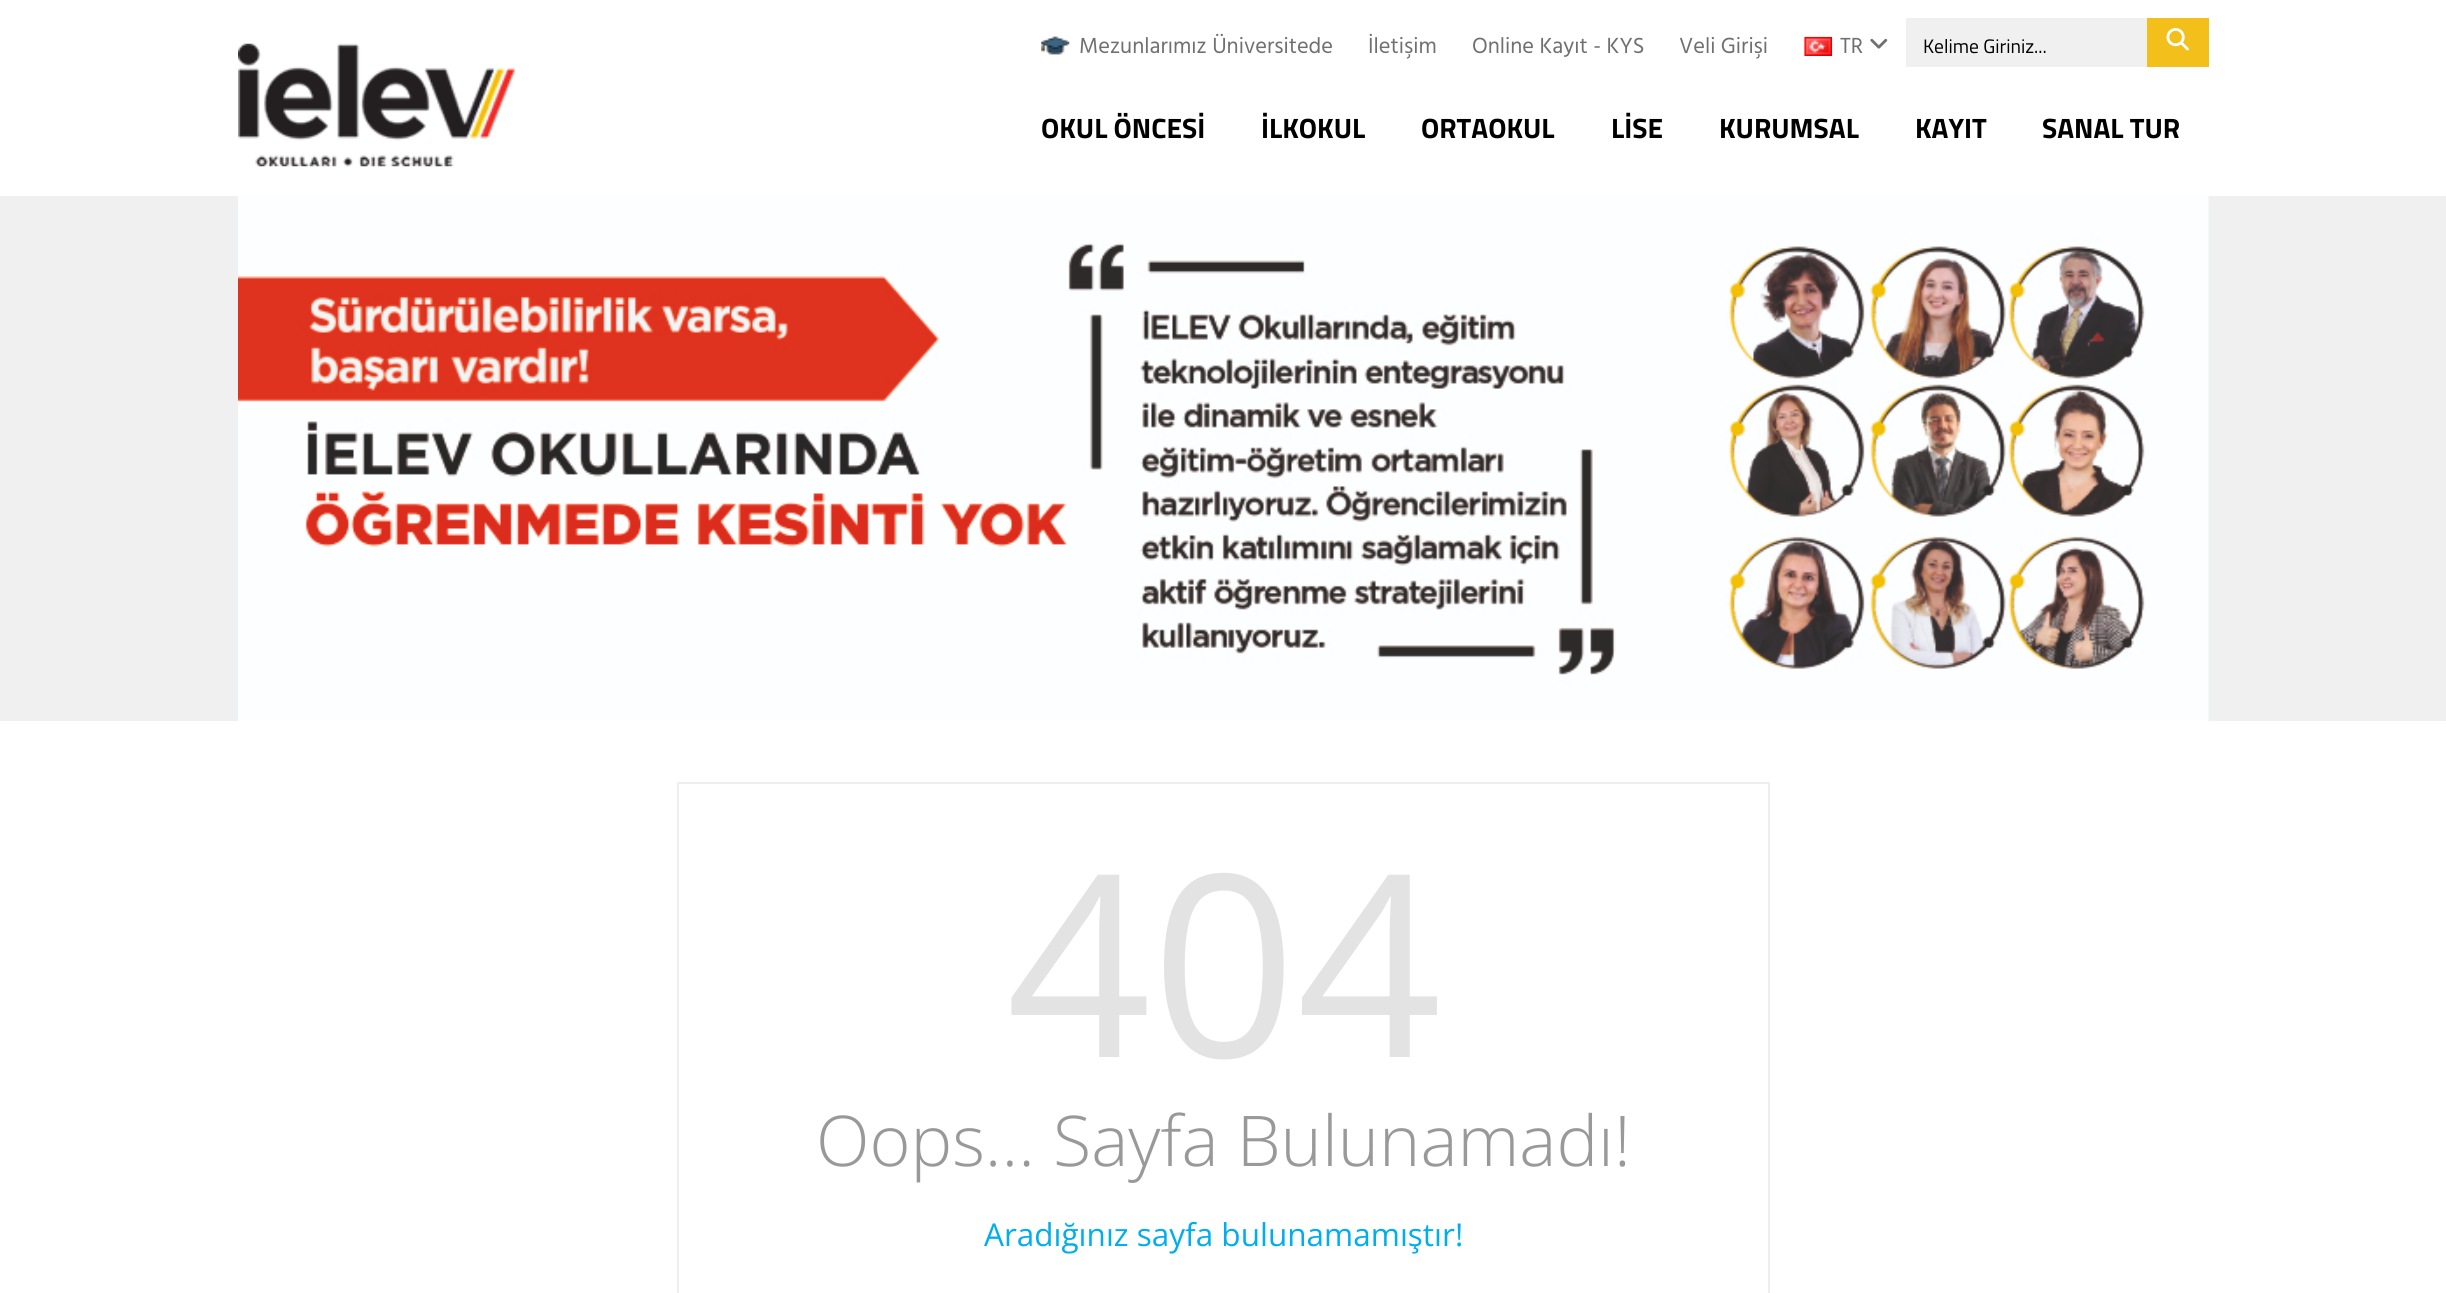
#include <cairo.h>
#include <math.h>
#include <stddef.h>


static void picture(cairo_t *cr, const char *path, double x, double y, double w, double h) {
    cairo_surface_t *image = cairo_image_surface_create_from_png(path);
    cairo_save(cr);
    cairo_set_source_surface(cr, image, x, y);
    cairo_rectangle(cr, x, y, w, h);
    cairo_fill(cr);
    cairo_restore(cr);
    cairo_surface_destroy(image);
}

int main(void) {
    cairo_surface_t *surface = cairo_image_surface_create(CAIRO_FORMAT_RGB24, 2446, 1293);
    cairo_t *cr = cairo_create(surface);
    cairo_font_options_t *options = cairo_font_options_create();
    cairo_font_options_set_hint_metrics(options, CAIRO_HINT_METRICS_OFF);
    cairo_font_options_set_hint_style(options, CAIRO_HINT_STYLE_NONE);
    cairo_set_font_options(cr, options);
    cairo_set_miter_limit(cr, 4);
    cairo_set_source_rgb(cr, 1, 1, 1);
    cairo_paint(cr);
    picture(cr, "img1.png", 238, 43, 277, 124);
    picture(cr, "img2.png", 1041, 36, 29, 19);
    cairo_select_font_face(cr, "Hind", CAIRO_FONT_SLANT_NORMAL, CAIRO_FONT_WEIGHT_NORMAL);
    cairo_set_font_size(cr, 22.4);
    cairo_set_source_rgb(cr, 0.439, 0.439, 0.439);
    cairo_move_to(cr, 1079, 53);
    cairo_show_text(cr, "Mezunlarımız Üniversitede");
    cairo_move_to(cr, 1368, 53);
    cairo_show_text(cr, "İletişim");
    cairo_move_to(cr, 1472, 53);
    cairo_show_text(cr, "Online Kayıt - KYS");
    cairo_move_to(cr, 1679, 53);
    cairo_show_text(cr, "Veli Girişi");
    picture(cr, "img3.png", 1804, 36, 29, 20);
    cairo_move_to(cr, 1840, 53);
    cairo_show_text(cr, "TR");
    picture(cr, "img4.png", 1870, 38, 18, 11);
    cairo_set_source_rgb(cr, 0.941, 0.941, 0.941);
    cairo_rectangle(cr, 1906, 18, 241, 49);
    cairo_fill(cr);
    cairo_select_font_face(cr, "Titillium Web", CAIRO_FONT_SLANT_NORMAL, CAIRO_FONT_WEIGHT_NORMAL);
    cairo_set_font_size(cr, 19.5);
    cairo_set_source_rgb(cr, 0, 0, 0);
    cairo_move_to(cr, 1923, 53);
    cairo_show_text(cr, "Kelime Giriniz...");
    cairo_set_source_rgb(cr, 0.953, 0.749, 0.102);
    cairo_rectangle(cr, 2147, 18, 62, 49);
    cairo_fill(cr);
    picture(cr, "img5.png", 2166, 28, 23, 23);
    cairo_select_font_face(cr, "Titillium Web", CAIRO_FONT_SLANT_NORMAL, CAIRO_FONT_WEIGHT_BOLD);
    cairo_set_font_size(cr, 28);
    cairo_set_source_rgb(cr, 0, 0, 0);
    cairo_move_to(cr, 1041, 138);
    cairo_show_text(cr, "OKUL ÖNCESİ");
    cairo_move_to(cr, 1261, 138);
    cairo_show_text(cr, "İLKOKUL");
    cairo_move_to(cr, 1421, 138);
    cairo_show_text(cr, "ORTAOKUL");
    cairo_move_to(cr, 1611, 138);
    cairo_show_text(cr, "LİSE");
    cairo_move_to(cr, 1719, 138);
    cairo_show_text(cr, "KURUMSAL");
    cairo_move_to(cr, 1915, 138);
    cairo_show_text(cr, "KAYIT");
    cairo_move_to(cr, 2042, 138);
    cairo_show_text(cr, "SANAL TUR");
    cairo_set_source_rgb(cr, 0.941, 0.941, 0.941);
    cairo_rectangle(cr, 0, 196, 2446, 525);
    cairo_fill(cr);
    picture(cr, "img6.png", 238, 196, 1971, 525);
    cairo_set_source_rgb(cr, 0.933, 0.933, 0.933);
    cairo_rectangle(cr, 677, 782, 1092, 2);
    cairo_fill(cr);
    cairo_rectangle(cr, 1768, 782, 2, 511);
    cairo_fill(cr);
    cairo_rectangle(cr, 677, 782, 2, 511);
    cairo_fill(cr);
    cairo_select_font_face(cr, "Open Sans", CAIRO_FONT_SLANT_NORMAL, CAIRO_FONT_WEIGHT_NORMAL);
    cairo_set_font_size(cr, 254);
    cairo_set_source_rgb(cr, 0.89, 0.89, 0.89);
    cairo_move_to(cr, 1006, 1057);
    cairo_show_text(cr, "404");
    cairo_select_font_face(cr, "Open Sans Light", CAIRO_FONT_SLANT_NORMAL, CAIRO_FONT_WEIGHT_NORMAL);
    cairo_set_font_size(cr, 70);
    cairo_set_source_rgb(cr, 0.6, 0.6, 0.6);
    cairo_move_to(cr, 816, 1166);
    cairo_show_text(cr, "Oops... Sayfa Bulunamadı!");
    cairo_select_font_face(cr, "Open Sans", CAIRO_FONT_SLANT_NORMAL, CAIRO_FONT_WEIGHT_NORMAL);
    cairo_set_font_size(cr, 31.5);
    cairo_set_source_rgb(cr, 0, 0.682, 0.937);
    cairo_move_to(cr, 984, 1246);
    cairo_show_text(cr, "Aradığınız sayfa bulunamamıştır!");
    cairo_surface_write_to_png(surface, "page.png");
    cairo_font_options_destroy(options);
    cairo_destroy(cr);
    cairo_surface_destroy(surface);
    return 0;
}
